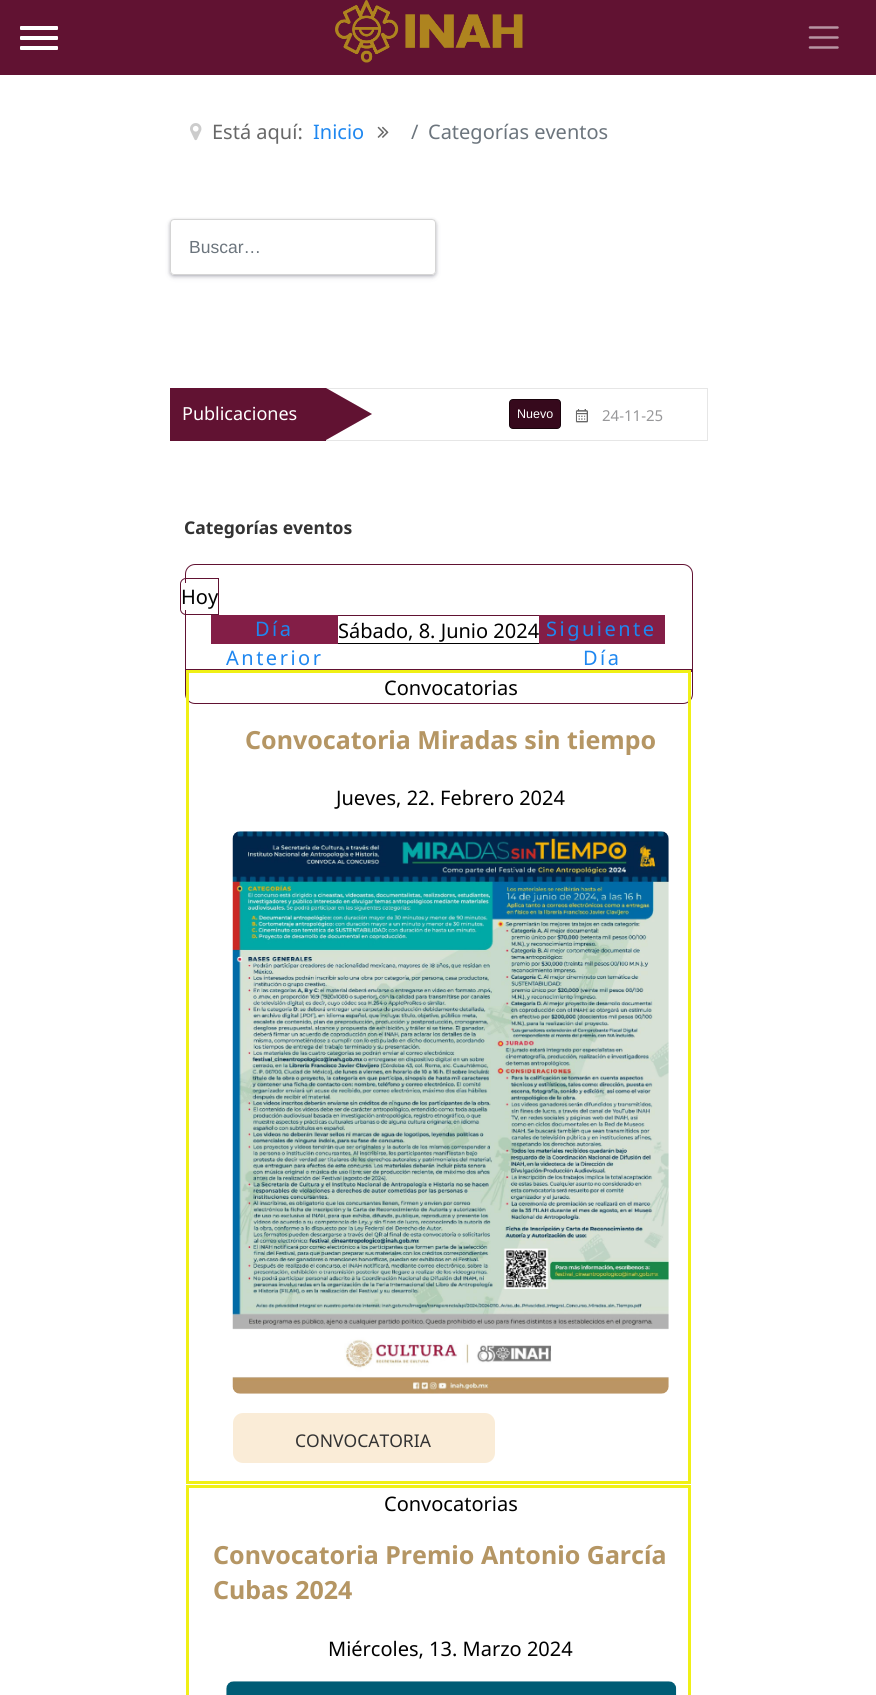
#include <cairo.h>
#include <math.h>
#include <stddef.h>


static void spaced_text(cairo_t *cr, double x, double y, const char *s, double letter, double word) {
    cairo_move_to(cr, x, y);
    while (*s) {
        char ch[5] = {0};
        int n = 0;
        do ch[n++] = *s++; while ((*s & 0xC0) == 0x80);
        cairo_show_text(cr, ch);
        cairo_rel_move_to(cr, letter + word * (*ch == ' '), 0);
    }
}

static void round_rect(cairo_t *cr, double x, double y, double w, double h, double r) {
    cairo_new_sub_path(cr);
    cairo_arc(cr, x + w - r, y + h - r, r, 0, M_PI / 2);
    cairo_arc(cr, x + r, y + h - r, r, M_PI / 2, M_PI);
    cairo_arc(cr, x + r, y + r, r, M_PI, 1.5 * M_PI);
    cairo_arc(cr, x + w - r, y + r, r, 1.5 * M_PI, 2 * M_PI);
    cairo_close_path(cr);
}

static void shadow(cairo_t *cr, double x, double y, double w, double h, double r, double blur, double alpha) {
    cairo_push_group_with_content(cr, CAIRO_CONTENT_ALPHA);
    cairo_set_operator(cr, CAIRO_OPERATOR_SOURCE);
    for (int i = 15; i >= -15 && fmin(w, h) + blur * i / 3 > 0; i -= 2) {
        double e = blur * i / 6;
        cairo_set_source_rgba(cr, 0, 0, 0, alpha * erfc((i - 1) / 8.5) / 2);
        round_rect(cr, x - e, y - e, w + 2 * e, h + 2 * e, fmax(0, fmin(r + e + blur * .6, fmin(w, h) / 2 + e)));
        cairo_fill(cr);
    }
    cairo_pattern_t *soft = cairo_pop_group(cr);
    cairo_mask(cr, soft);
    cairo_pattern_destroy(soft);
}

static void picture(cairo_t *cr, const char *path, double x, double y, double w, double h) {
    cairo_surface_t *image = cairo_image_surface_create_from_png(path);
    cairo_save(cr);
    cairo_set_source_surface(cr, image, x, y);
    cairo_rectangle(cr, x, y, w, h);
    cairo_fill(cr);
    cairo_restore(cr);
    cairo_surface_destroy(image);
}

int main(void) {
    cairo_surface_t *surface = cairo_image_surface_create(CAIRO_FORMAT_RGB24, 876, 1695);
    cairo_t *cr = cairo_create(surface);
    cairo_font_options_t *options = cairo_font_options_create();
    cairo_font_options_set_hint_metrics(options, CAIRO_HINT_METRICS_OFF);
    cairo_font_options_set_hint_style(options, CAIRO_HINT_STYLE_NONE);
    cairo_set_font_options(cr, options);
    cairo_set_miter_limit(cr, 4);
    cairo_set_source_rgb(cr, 1, 1, 1);
    cairo_paint(cr);
    cairo_set_source_rgb(cr, 0.38, 0.071, 0.196);
    cairo_rectangle(cr, 0, 0, 876, 75);
    cairo_fill(cr);
    picture(cr, "img1.png", 335, 0, 188, 63);
    cairo_new_path(cr);
    cairo_move_to(cr, 810, 27.5);
    cairo_line_to(cr, 837.5, 27.5);
    cairo_move_to(cr, 810, 37.5);
    cairo_line_to(cr, 837.5, 37.5);
    cairo_move_to(cr, 810, 47.5);
    cairo_line_to(cr, 837.5, 47.5);
    cairo_set_source_rgb(cr, 0.722, 0.58, 0.639);
    cairo_set_line_width(cr, 2.5);
    cairo_set_line_cap(cr, CAIRO_LINE_CAP_ROUND);
    cairo_stroke(cr);
    cairo_set_source_rgb(cr, 1, 1, 1);
    round_rect(cr, 20, 36, 38, 4, 1);
    cairo_fill(cr);
    round_rect(cr, 20, 26, 38, 4, 1);
    cairo_fill(cr);
    round_rect(cr, 20, 46, 38, 4, 1);
    cairo_fill(cr);
    picture(cr, "img2.png", 190, 123, 12, 18);
    cairo_select_font_face(cr, "Noto Sans", CAIRO_FONT_SLANT_NORMAL, CAIRO_FONT_WEIGHT_NORMAL);
    cairo_set_font_size(cr, 20);
    cairo_set_source_rgb(cr, 0.408, 0.408, 0.408);
    cairo_move_to(cr, 212, 139);
    cairo_show_text(cr, "Está aquí:");
    cairo_set_source_rgb(cr, 0.118, 0.529, 0.941);
    cairo_move_to(cr, 313, 139);
    cairo_show_text(cr, "Inicio");
    picture(cr, "img3.png", 377, 126, 12, 12);
    cairo_set_source_rgb(cr, 0.424, 0.459, 0.49);
    cairo_move_to(cr, 411, 139);
    cairo_show_text(cr, "/");
    cairo_move_to(cr, 428, 139);
    cairo_show_text(cr, "Categorías eventos");
    cairo_save(cr);
    cairo_set_fill_rule(cr, CAIRO_FILL_RULE_EVEN_ODD);
    cairo_new_path(cr);
    cairo_move_to(cr, 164, 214);
    cairo_line_to(cr, 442, 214);
    cairo_line_to(cr, 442, 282);
    cairo_line_to(cr, 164, 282);
    cairo_close_path(cr);
    cairo_move_to(cr, 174, 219);
    cairo_line_to(cr, 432, 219);
    cairo_curve_to(cr, 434, 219, 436, 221, 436, 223);
    cairo_line_to(cr, 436, 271);
    cairo_curve_to(cr, 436, 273, 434, 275, 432, 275);
    cairo_line_to(cr, 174, 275);
    cairo_curve_to(cr, 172, 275, 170, 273, 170, 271);
    cairo_line_to(cr, 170, 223);
    cairo_curve_to(cr, 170, 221, 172, 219, 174, 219);
    cairo_close_path(cr);
    cairo_clip(cr);
    cairo_set_source_rgb(cr, 0, 0, 0);
    shadow(cr, 171, 221, 264, 54, 2.5, 2, 0.3);
    cairo_restore(cr);
    cairo_save(cr);
    cairo_set_fill_rule(cr, CAIRO_FILL_RULE_EVEN_ODD);
    cairo_new_path(cr);
    cairo_move_to(cr, 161, 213);
    cairo_line_to(cr, 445, 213);
    cairo_line_to(cr, 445, 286);
    cairo_line_to(cr, 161, 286);
    cairo_close_path(cr);
    cairo_move_to(cr, 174, 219);
    cairo_line_to(cr, 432, 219);
    cairo_curve_to(cr, 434, 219, 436, 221, 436, 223);
    cairo_line_to(cr, 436, 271);
    cairo_curve_to(cr, 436, 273, 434, 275, 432, 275);
    cairo_line_to(cr, 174, 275);
    cairo_curve_to(cr, 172, 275, 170, 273, 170, 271);
    cairo_line_to(cr, 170, 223);
    cairo_curve_to(cr, 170, 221, 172, 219, 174, 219);
    cairo_close_path(cr);
    cairo_clip(cr);
    cairo_set_source_rgb(cr, 0.196, 0.196, 0.365);
    shadow(cr, 171, 223, 264, 53, 2.5, 3, 0.25);
    cairo_restore(cr);
    round_rect(cr, 170.5, 219.5, 265, 55, 3.5);
    cairo_set_source_rgb(cr, 0.835, 0.835, 0.835);
    cairo_set_line_width(cr, 1);
    cairo_set_line_cap(cr, CAIRO_LINE_CAP_BUTT);
    cairo_stroke(cr);
    cairo_select_font_face(cr, "Liberation Sans", CAIRO_FONT_SLANT_NORMAL, CAIRO_FONT_WEIGHT_NORMAL);
    cairo_set_font_size(cr, 17.5);
    cairo_set_source_rgb(cr, 0.424, 0.459, 0.49);
    cairo_move_to(cr, 189, 253);
    cairo_show_text(cr, "Buscar…");
    cairo_rectangle(cr, 170.5, 388.5, 537, 52);
    cairo_set_source_rgb(cr, 0.902, 0.902, 0.902);
    cairo_stroke(cr);
    cairo_set_source_rgb(cr, 0.38, 0.071, 0.196);
    cairo_rectangle(cr, 170, 388, 156, 53);
    cairo_fill(cr);
    cairo_select_font_face(cr, "Noto Sans", CAIRO_FONT_SLANT_NORMAL, CAIRO_FONT_WEIGHT_NORMAL);
    cairo_set_font_size(cr, 18);
    cairo_set_source_rgb(cr, 1, 1, 1);
    cairo_move_to(cr, 182, 420);
    cairo_show_text(cr, "Publicaciones");
    cairo_set_source_rgb(cr, 0.38, 0.071, 0.196);
    cairo_new_path(cr);
    cairo_move_to(cr, 326, 440);
    cairo_line_to(cr, 326, 388);
    cairo_line_to(cr, 372, 414);
    cairo_close_path(cr);
    cairo_fill(cr);
    cairo_set_source_rgb(cr, 0.212, 0.039, 0.11);
    round_rect(cr, 509.5, 399.5, 51, 29, 3.5);
    cairo_fill_preserve(cr);
    cairo_set_source_rgb(cr, 0.094, 0.016, 0.047);
    cairo_stroke(cr);
    cairo_select_font_face(cr, "Liberation Sans", CAIRO_FONT_SLANT_NORMAL, CAIRO_FONT_WEIGHT_NORMAL);
    cairo_set_font_size(cr, 12.5);
    cairo_set_source_rgb(cr, 1, 1, 1);
    cairo_move_to(cr, 517, 418);
    cairo_show_text(cr, "Nuevo");
    picture(cr, "img4.png", 575, 409, 13, 14);
    cairo_select_font_face(cr, "Noto Sans", CAIRO_FONT_SLANT_NORMAL, CAIRO_FONT_WEIGHT_NORMAL);
    cairo_set_font_size(cr, 15);
    cairo_set_source_rgb(cr, 0.596, 0.596, 0.604);
    cairo_move_to(cr, 602, 421);
    cairo_show_text(cr, "24-11-25");
    cairo_select_font_face(cr, "Noto Sans", CAIRO_FONT_SLANT_NORMAL, CAIRO_FONT_WEIGHT_BOLD);
    cairo_set_font_size(cr, 17.5);
    cairo_set_source_rgb(cr, 0.2, 0.2, 0.2);
    cairo_move_to(cr, 184, 534);
    cairo_show_text(cr, "Categorías eventos");
    round_rect(cr, 185.5, 564.5, 507, 139, 9.5);
    cairo_set_source_rgb(cr, 0.38, 0.071, 0.196);
    cairo_stroke(cr);
    cairo_new_path(cr);
    cairo_move_to(cr, 186, 578.5);
    cairo_line_to(cr, 218.5, 578.5);
    cairo_line_to(cr, 218.5, 614.5);
    cairo_line_to(cr, 186, 614.5);
    cairo_curve_to(cr, 183, 614.5, 180.5, 612, 180.5, 609);
    cairo_line_to(cr, 180.5, 584);
    cairo_curve_to(cr, 180.5, 581, 183, 578.5, 186, 578.5);
    cairo_close_path(cr);
    cairo_stroke(cr);
    cairo_set_source_rgb(cr, 1, 1, 1);
    cairo_rectangle(cr, 181, 583, 5, 27);
    cairo_fill(cr);
    cairo_select_font_face(cr, "Noto Sans", CAIRO_FONT_SLANT_NORMAL, CAIRO_FONT_WEIGHT_NORMAL);
    cairo_set_font_size(cr, 20);
    cairo_set_source_rgb(cr, 0, 0, 0);
    cairo_move_to(cr, 181, 604);
    cairo_show_text(cr, "Hoy");
    cairo_set_source_rgb(cr, 0.514, 0.118, 0.278);
    cairo_rectangle(cr, 211, 615, 127, 29);
    cairo_fill(cr);
    cairo_set_source_rgb(cr, 0.118, 0.529, 0.941);
    spaced_text(cr, 255, 636, "Día", 2.5, 0);
    spaced_text(cr, 226, 665, "Anterior", 2.5, 0);
    cairo_set_source_rgb(cr, 0.38, 0.071, 0.196);
    cairo_rectangle(cr, 338, 615, 201, 1);
    cairo_fill(cr);
    cairo_set_source_rgb(cr, 0, 0, 0);
    cairo_rectangle(cr, 338, 643, 201, 1);
    cairo_fill(cr);
    cairo_move_to(cr, 338, 638);
    cairo_show_text(cr, "Sábado, 8. Junio 2024");
    cairo_set_source_rgb(cr, 0.514, 0.118, 0.278);
    cairo_rectangle(cr, 539, 615, 126, 29);
    cairo_fill(cr);
    cairo_set_source_rgb(cr, 0.118, 0.529, 0.941);
    spaced_text(cr, 546, 636, "Siguiente", 2.5, 0);
    spaced_text(cr, 583, 665, "Día", 2.5, 0);
    cairo_set_source_rgb(cr, 0.38, 0.071, 0.196);
    cairo_rectangle(cr, 185, 669, 508, 3);
    cairo_fill(cr);
    cairo_rectangle(cr, 187.5, 671.5, 502, 811);
    cairo_set_source_rgb(cr, 0.941, 0.941, 0.086);
    cairo_set_line_width(cr, 3);
    cairo_stroke(cr);
    cairo_set_source_rgb(cr, 0, 0, 0);
    cairo_move_to(cr, 384, 695);
    cairo_show_text(cr, "Convocatorias");
    cairo_select_font_face(cr, "Noto Sans", CAIRO_FONT_SLANT_NORMAL, CAIRO_FONT_WEIGHT_BOLD);
    cairo_set_font_size(cr, 25);
    cairo_set_source_rgb(cr, 0.71, 0.588, 0.392);
    cairo_move_to(cr, 245, 749);
    cairo_show_text(cr, "Convocatoria Miradas sin tiempo");
    cairo_select_font_face(cr, "Noto Sans", CAIRO_FONT_SLANT_NORMAL, CAIRO_FONT_WEIGHT_NORMAL);
    cairo_set_font_size(cr, 20);
    cairo_set_source_rgb(cr, 0, 0, 0);
    cairo_move_to(cr, 336, 805);
    cairo_show_text(cr, "Jueves, 22. Febrero 2024");
    picture(cr, "img5.png", 232, 831, 437, 563);
    cairo_set_source_rgb(cr, 0.98, 0.922, 0.843);
    round_rect(cr, 233, 1413, 262, 50, 10);
    cairo_fill(cr);
    cairo_set_font_size(cr, 17.5);
    cairo_set_source_rgb(cr, 0.2, 0.2, 0.2);
    cairo_move_to(cr, 295, 1447);
    cairo_show_text(cr, "CONVOCATORIA");
    cairo_rectangle(cr, 187.5, 1486.5, 502, 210);
    cairo_set_source_rgb(cr, 0.941, 0.941, 0.086);
    cairo_stroke(cr);
    cairo_set_font_size(cr, 20);
    cairo_set_source_rgb(cr, 0, 0, 0);
    cairo_move_to(cr, 384, 1511);
    cairo_show_text(cr, "Convocatorias");
    cairo_select_font_face(cr, "Noto Sans", CAIRO_FONT_SLANT_NORMAL, CAIRO_FONT_WEIGHT_BOLD);
    cairo_set_font_size(cr, 25);
    cairo_set_source_rgb(cr, 0.71, 0.588, 0.392);
    cairo_move_to(cr, 213, 1564);
    cairo_show_text(cr, "Convocatoria Premio Antonio García");
    cairo_move_to(cr, 213, 1599);
    cairo_show_text(cr, "Cubas 2024");
    cairo_select_font_face(cr, "Noto Sans", CAIRO_FONT_SLANT_NORMAL, CAIRO_FONT_WEIGHT_NORMAL);
    cairo_set_font_size(cr, 20);
    cairo_set_source_rgb(cr, 0, 0, 0);
    cairo_move_to(cr, 328, 1656);
    cairo_show_text(cr, "Miércoles, 13. Marzo 2024");
    picture(cr, "img6.png", 226, 1681, 451, 14);
    cairo_surface_write_to_png(surface, "page.png");
    cairo_font_options_destroy(options);
    cairo_destroy(cr);
    cairo_surface_destroy(surface);
    return 0;
}
